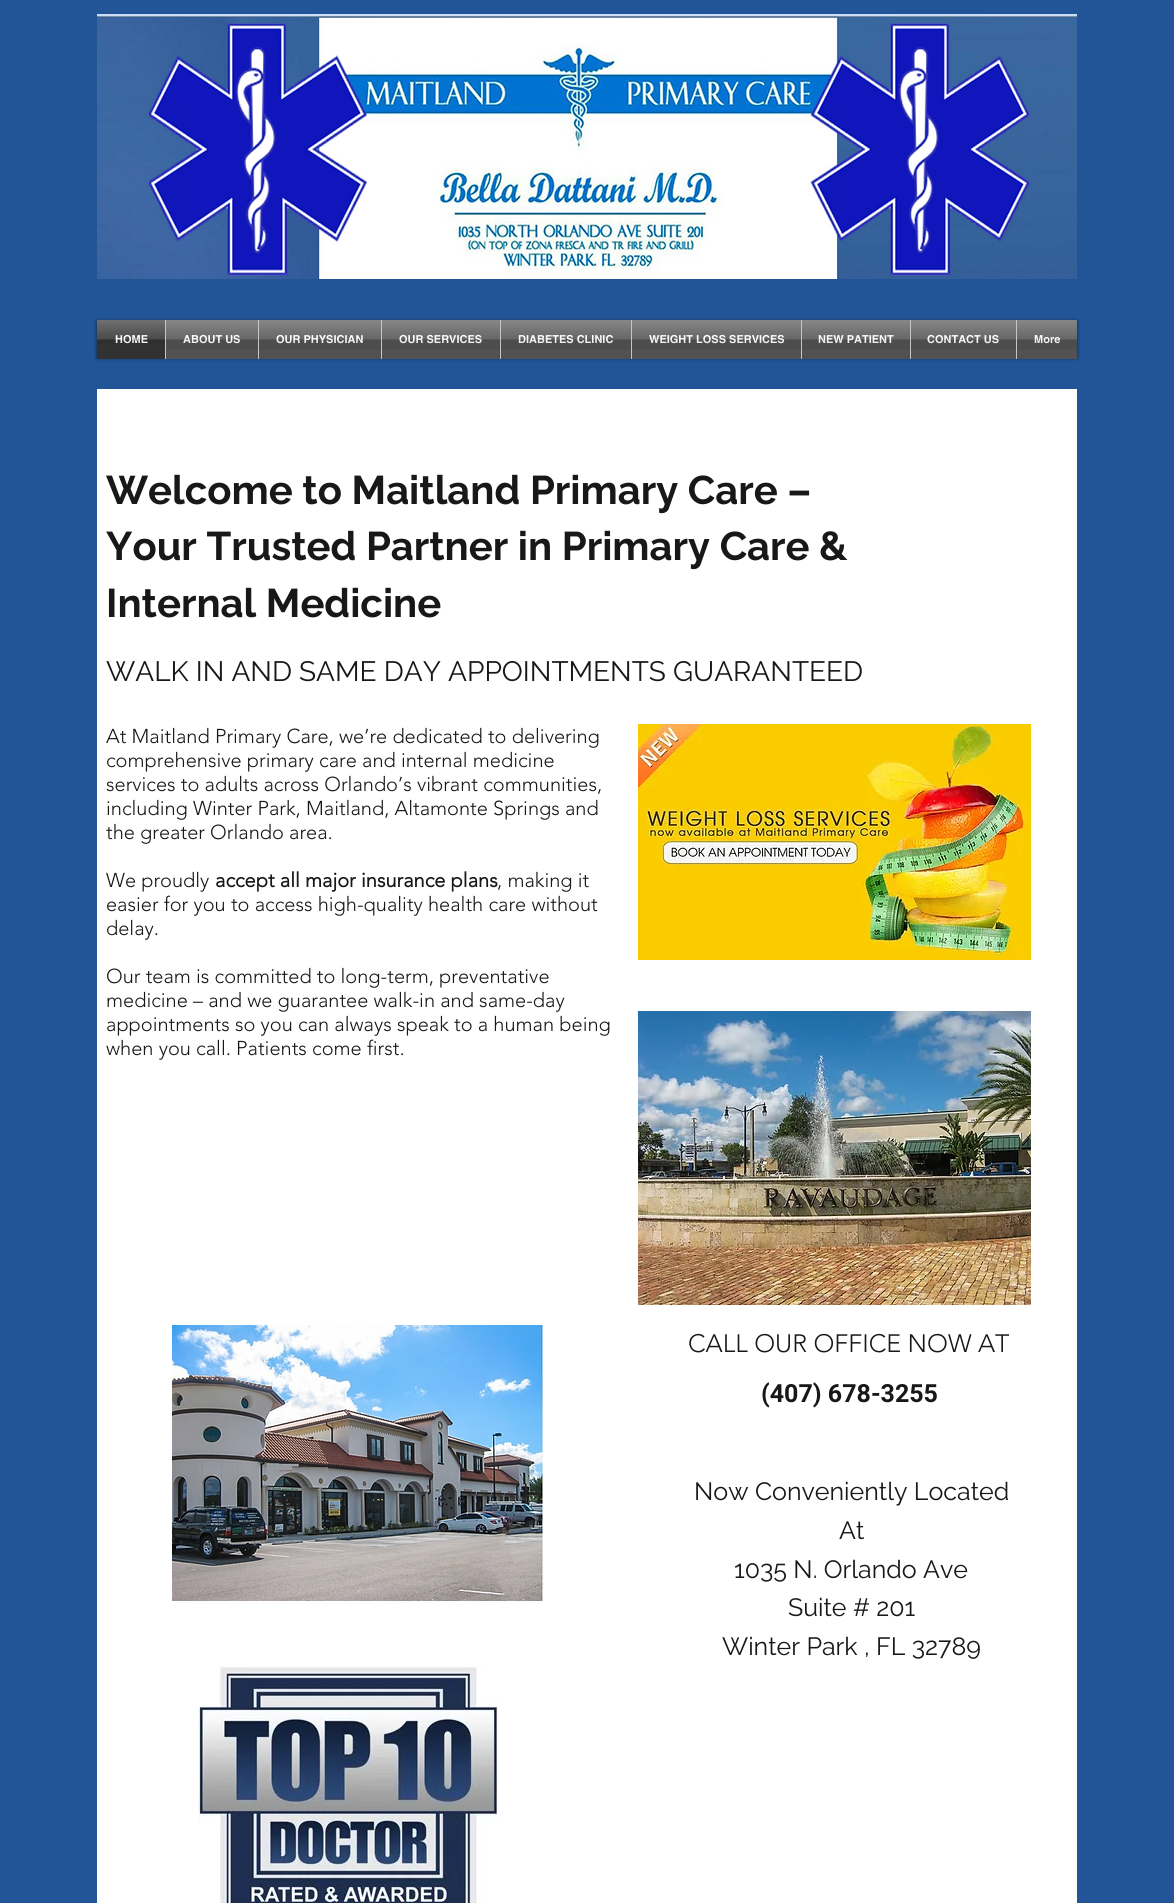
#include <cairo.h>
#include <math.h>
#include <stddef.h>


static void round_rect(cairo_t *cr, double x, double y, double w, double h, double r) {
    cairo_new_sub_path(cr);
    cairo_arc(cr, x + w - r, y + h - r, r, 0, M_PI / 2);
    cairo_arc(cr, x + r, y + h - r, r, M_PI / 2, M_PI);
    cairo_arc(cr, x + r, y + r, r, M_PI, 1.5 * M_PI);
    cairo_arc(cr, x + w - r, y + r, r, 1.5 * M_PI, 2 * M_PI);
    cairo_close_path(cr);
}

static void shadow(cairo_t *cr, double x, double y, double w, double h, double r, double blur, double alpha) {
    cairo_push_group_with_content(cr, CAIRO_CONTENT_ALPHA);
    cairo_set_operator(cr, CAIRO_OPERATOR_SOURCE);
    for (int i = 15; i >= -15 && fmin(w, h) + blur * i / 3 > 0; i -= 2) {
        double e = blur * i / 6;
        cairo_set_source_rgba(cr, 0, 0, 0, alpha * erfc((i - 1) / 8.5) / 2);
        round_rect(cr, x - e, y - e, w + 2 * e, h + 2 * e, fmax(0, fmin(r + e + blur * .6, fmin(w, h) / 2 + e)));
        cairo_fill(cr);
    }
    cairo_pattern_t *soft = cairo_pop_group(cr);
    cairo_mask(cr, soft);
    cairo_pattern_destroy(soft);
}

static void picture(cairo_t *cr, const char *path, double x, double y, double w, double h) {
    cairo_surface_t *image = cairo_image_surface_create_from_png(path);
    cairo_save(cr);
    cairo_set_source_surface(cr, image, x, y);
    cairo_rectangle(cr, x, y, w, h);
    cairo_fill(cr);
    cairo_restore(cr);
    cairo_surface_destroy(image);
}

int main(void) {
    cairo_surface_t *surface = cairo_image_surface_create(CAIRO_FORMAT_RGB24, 1174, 1903);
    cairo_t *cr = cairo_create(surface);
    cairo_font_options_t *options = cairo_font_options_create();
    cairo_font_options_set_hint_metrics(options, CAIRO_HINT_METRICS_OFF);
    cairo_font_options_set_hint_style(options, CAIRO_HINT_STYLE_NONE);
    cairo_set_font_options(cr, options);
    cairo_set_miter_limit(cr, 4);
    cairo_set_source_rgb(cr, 0.133, 0.333, 0.596);
    cairo_paint(cr);
    picture(cr, "img1.png", 97, 14, 980, 265);
    cairo_set_source_rgb(cr, 0, 0, 0);
    shadow(cr, 97, 321, 980, 37, 0, 2, 0.6);
    cairo_set_source_rgb(cr, 0.196, 0.196, 0.196);
    cairo_rectangle(cr, 97, 320, 68, 39);
    cairo_fill(cr);
    cairo_select_font_face(cr, "helvetica", CAIRO_FONT_SLANT_NORMAL, CAIRO_FONT_WEIGHT_BOLD);
    cairo_set_font_size(cr, 11);
    cairo_set_source_rgb(cr, 1, 1, 1);
    cairo_move_to(cr, 115, 343);
    cairo_show_text(cr, "HOME");
    picture(cr, "img2.png", 97, 320, 68, 24);
    cairo_set_source_rgb(cr, 0.322, 0.322, 0.322);
    cairo_rectangle(cr, 166, 320, 92, 39);
    cairo_fill(cr);
    cairo_set_source_rgb(cr, 0.773, 0.773, 0.773);
    cairo_rectangle(cr, 165, 320, 1, 39);
    cairo_fill(cr);
    cairo_set_source_rgb(cr, 1, 1, 1);
    cairo_move_to(cr, 183, 343);
    cairo_show_text(cr, "ABOUT US");
    picture(cr, "img3.png", 166, 320, 92, 30);
    cairo_set_source_rgb(cr, 0.322, 0.322, 0.322);
    cairo_rectangle(cr, 259, 320, 122, 39);
    cairo_fill(cr);
    cairo_set_source_rgb(cr, 0.773, 0.773, 0.773);
    cairo_rectangle(cr, 258, 320, 1, 39);
    cairo_fill(cr);
    cairo_set_source_rgb(cr, 1, 1, 1);
    cairo_move_to(cr, 276, 343);
    cairo_show_text(cr, "OUR PHYSICIAN");
    picture(cr, "img4.png", 259, 320, 122, 30);
    cairo_set_source_rgb(cr, 0.322, 0.322, 0.322);
    cairo_rectangle(cr, 382, 320, 118, 39);
    cairo_fill(cr);
    cairo_set_source_rgb(cr, 0.773, 0.773, 0.773);
    cairo_rectangle(cr, 381, 320, 1, 39);
    cairo_fill(cr);
    cairo_set_source_rgb(cr, 1, 1, 1);
    cairo_move_to(cr, 399, 343);
    cairo_show_text(cr, "OUR SERVICES");
    picture(cr, "img5.png", 382, 320, 118, 30);
    cairo_set_source_rgb(cr, 0.322, 0.322, 0.322);
    cairo_rectangle(cr, 501, 320, 130, 39);
    cairo_fill(cr);
    cairo_set_source_rgb(cr, 0.773, 0.773, 0.773);
    cairo_rectangle(cr, 500, 320, 1, 39);
    cairo_fill(cr);
    cairo_set_source_rgb(cr, 1, 1, 1);
    cairo_move_to(cr, 518, 343);
    cairo_show_text(cr, "DIABETES CLINIC");
    picture(cr, "img6.png", 501, 320, 130, 30);
    cairo_set_source_rgb(cr, 0.322, 0.322, 0.322);
    cairo_rectangle(cr, 632, 320, 169, 39);
    cairo_fill(cr);
    cairo_set_source_rgb(cr, 0.773, 0.773, 0.773);
    cairo_rectangle(cr, 631, 320, 1, 39);
    cairo_fill(cr);
    cairo_set_source_rgb(cr, 1, 1, 1);
    cairo_move_to(cr, 649, 343);
    cairo_show_text(cr, "WEIGHT LOSS SERVICES");
    picture(cr, "img7.png", 632, 320, 169, 30);
    cairo_set_source_rgb(cr, 0.322, 0.322, 0.322);
    cairo_rectangle(cr, 802, 320, 108, 39);
    cairo_fill(cr);
    cairo_set_source_rgb(cr, 0.773, 0.773, 0.773);
    cairo_rectangle(cr, 801, 320, 1, 39);
    cairo_fill(cr);
    cairo_set_source_rgb(cr, 1, 1, 1);
    cairo_move_to(cr, 818, 343);
    cairo_show_text(cr, "NEW PATIENT");
    picture(cr, "img8.png", 802, 320, 108, 30);
    cairo_set_source_rgb(cr, 0.322, 0.322, 0.322);
    cairo_rectangle(cr, 911, 320, 105, 39);
    cairo_fill(cr);
    cairo_set_source_rgb(cr, 0.773, 0.773, 0.773);
    cairo_rectangle(cr, 910, 320, 1, 39);
    cairo_fill(cr);
    cairo_set_source_rgb(cr, 1, 1, 1);
    cairo_move_to(cr, 927, 343);
    cairo_show_text(cr, "CONTACT US");
    picture(cr, "img9.png", 911, 320, 105, 30);
    cairo_set_source_rgb(cr, 0.322, 0.322, 0.322);
    cairo_rectangle(cr, 1017, 320, 60, 39);
    cairo_fill(cr);
    cairo_set_source_rgb(cr, 0.773, 0.773, 0.773);
    cairo_rectangle(cr, 1016, 320, 1, 39);
    cairo_fill(cr);
    cairo_set_source_rgb(cr, 1, 1, 1);
    cairo_move_to(cr, 1034, 343);
    cairo_show_text(cr, "More");
    picture(cr, "img10.png", 1017, 320, 60, 30);
    cairo_rectangle(cr, 97, 389, 980, 1514);
    cairo_fill(cr);
    cairo_select_font_face(cr, "Raleway", CAIRO_FONT_SLANT_NORMAL, CAIRO_FONT_WEIGHT_BOLD);
    cairo_set_font_size(cr, 40);
    cairo_set_source_rgb(cr, 0.094, 0.094, 0.094);
    cairo_move_to(cr, 106, 504);
    cairo_show_text(cr, "Welcome to Maitland Primary Care –");
    cairo_move_to(cr, 106, 560);
    cairo_show_text(cr, "Your Trusted Partner in Primary Care &");
    cairo_move_to(cr, 106, 617);
    cairo_show_text(cr, "Internal Medicine");
    cairo_select_font_face(cr, "Raleway", CAIRO_FONT_SLANT_NORMAL, CAIRO_FONT_WEIGHT_NORMAL);
    cairo_set_font_size(cr, 28);
    cairo_move_to(cr, 106, 681);
    cairo_show_text(cr, "WALK IN AND SAME DAY APPOINTMENTS GUARANTEED");
    cairo_select_font_face(cr, "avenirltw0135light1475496 Light", CAIRO_FONT_SLANT_NORMAL, CAIRO_FONT_WEIGHT_NORMAL);
    cairo_set_font_size(cr, 20);
    cairo_move_to(cr, 106, 743);
    cairo_show_text(cr, "At Maitland Primary Care, we’re dedicated to delivering");
    cairo_move_to(cr, 106, 767);
    cairo_show_text(cr, "comprehensive primary care and internal medicine");
    cairo_move_to(cr, 106, 791);
    cairo_show_text(cr, "services to adults across Orlando’s vibrant communities,");
    cairo_move_to(cr, 106, 815);
    cairo_show_text(cr, "including Winter Park, Maitland, Altamonte Springs and");
    cairo_move_to(cr, 106, 839);
    cairo_show_text(cr, "the greater Orlando area.");
    cairo_move_to(cr, 106, 887);
    cairo_show_text(cr, "We proudly");
    cairo_select_font_face(cr, "avenirltw0135light1475496", CAIRO_FONT_SLANT_NORMAL, CAIRO_FONT_WEIGHT_BOLD);
    cairo_move_to(cr, 215, 887);
    cairo_show_text(cr, "accept all major insurance plans");
    cairo_select_font_face(cr, "avenirltw0135light1475496 Light", CAIRO_FONT_SLANT_NORMAL, CAIRO_FONT_WEIGHT_NORMAL);
    cairo_move_to(cr, 497, 887);
    cairo_show_text(cr, ", making it");
    cairo_move_to(cr, 106, 911);
    cairo_show_text(cr, "easier for you to access high-quality health care without");
    cairo_move_to(cr, 106, 935);
    cairo_show_text(cr, "delay.");
    cairo_move_to(cr, 106, 983);
    cairo_show_text(cr, "Our team is committed to long-term, preventative");
    cairo_move_to(cr, 106, 1007);
    cairo_show_text(cr, "medicine – and we guarantee walk-in and same-day");
    cairo_move_to(cr, 106, 1031);
    cairo_show_text(cr, "appointments so you can always speak to a human being");
    cairo_move_to(cr, 106, 1055);
    cairo_show_text(cr, "when you call. Patients come first.");
    picture(cr, "img11.png", 638, 724, 393, 236);
    picture(cr, "img12.png", 638, 1011, 393, 294);
    picture(cr, "img13.png", 172, 1325, 371, 276);
    cairo_set_font_size(cr, 25);
    cairo_move_to(cr, 688, 1352);
    cairo_show_text(cr, "CALL OUR OFFICE NOW AT");
    cairo_select_font_face(cr, "Roboto", CAIRO_FONT_SLANT_NORMAL, CAIRO_FONT_WEIGHT_BOLD);
    cairo_move_to(cr, 761, 1402);
    cairo_show_text(cr, "(407) 678-3255");
    cairo_select_font_face(cr, "Raleway", CAIRO_FONT_SLANT_NORMAL, CAIRO_FONT_WEIGHT_NORMAL);
    cairo_move_to(cr, 694, 1500);
    cairo_show_text(cr, "Now Conveniently Located");
    cairo_move_to(cr, 839, 1539);
    cairo_show_text(cr, "At");
    cairo_move_to(cr, 734, 1578);
    cairo_show_text(cr, "1035 N. Orlando Ave");
    cairo_move_to(cr, 788, 1616);
    cairo_show_text(cr, "Suite # 201");
    cairo_move_to(cr, 722, 1655);
    cairo_show_text(cr, "Winter Park , FL 32789");
    picture(cr, "img14.png", 198, 1665, 300, 238);
    cairo_surface_write_to_png(surface, "page.png");
    cairo_font_options_destroy(options);
    cairo_destroy(cr);
    cairo_surface_destroy(surface);
    return 0;
}
